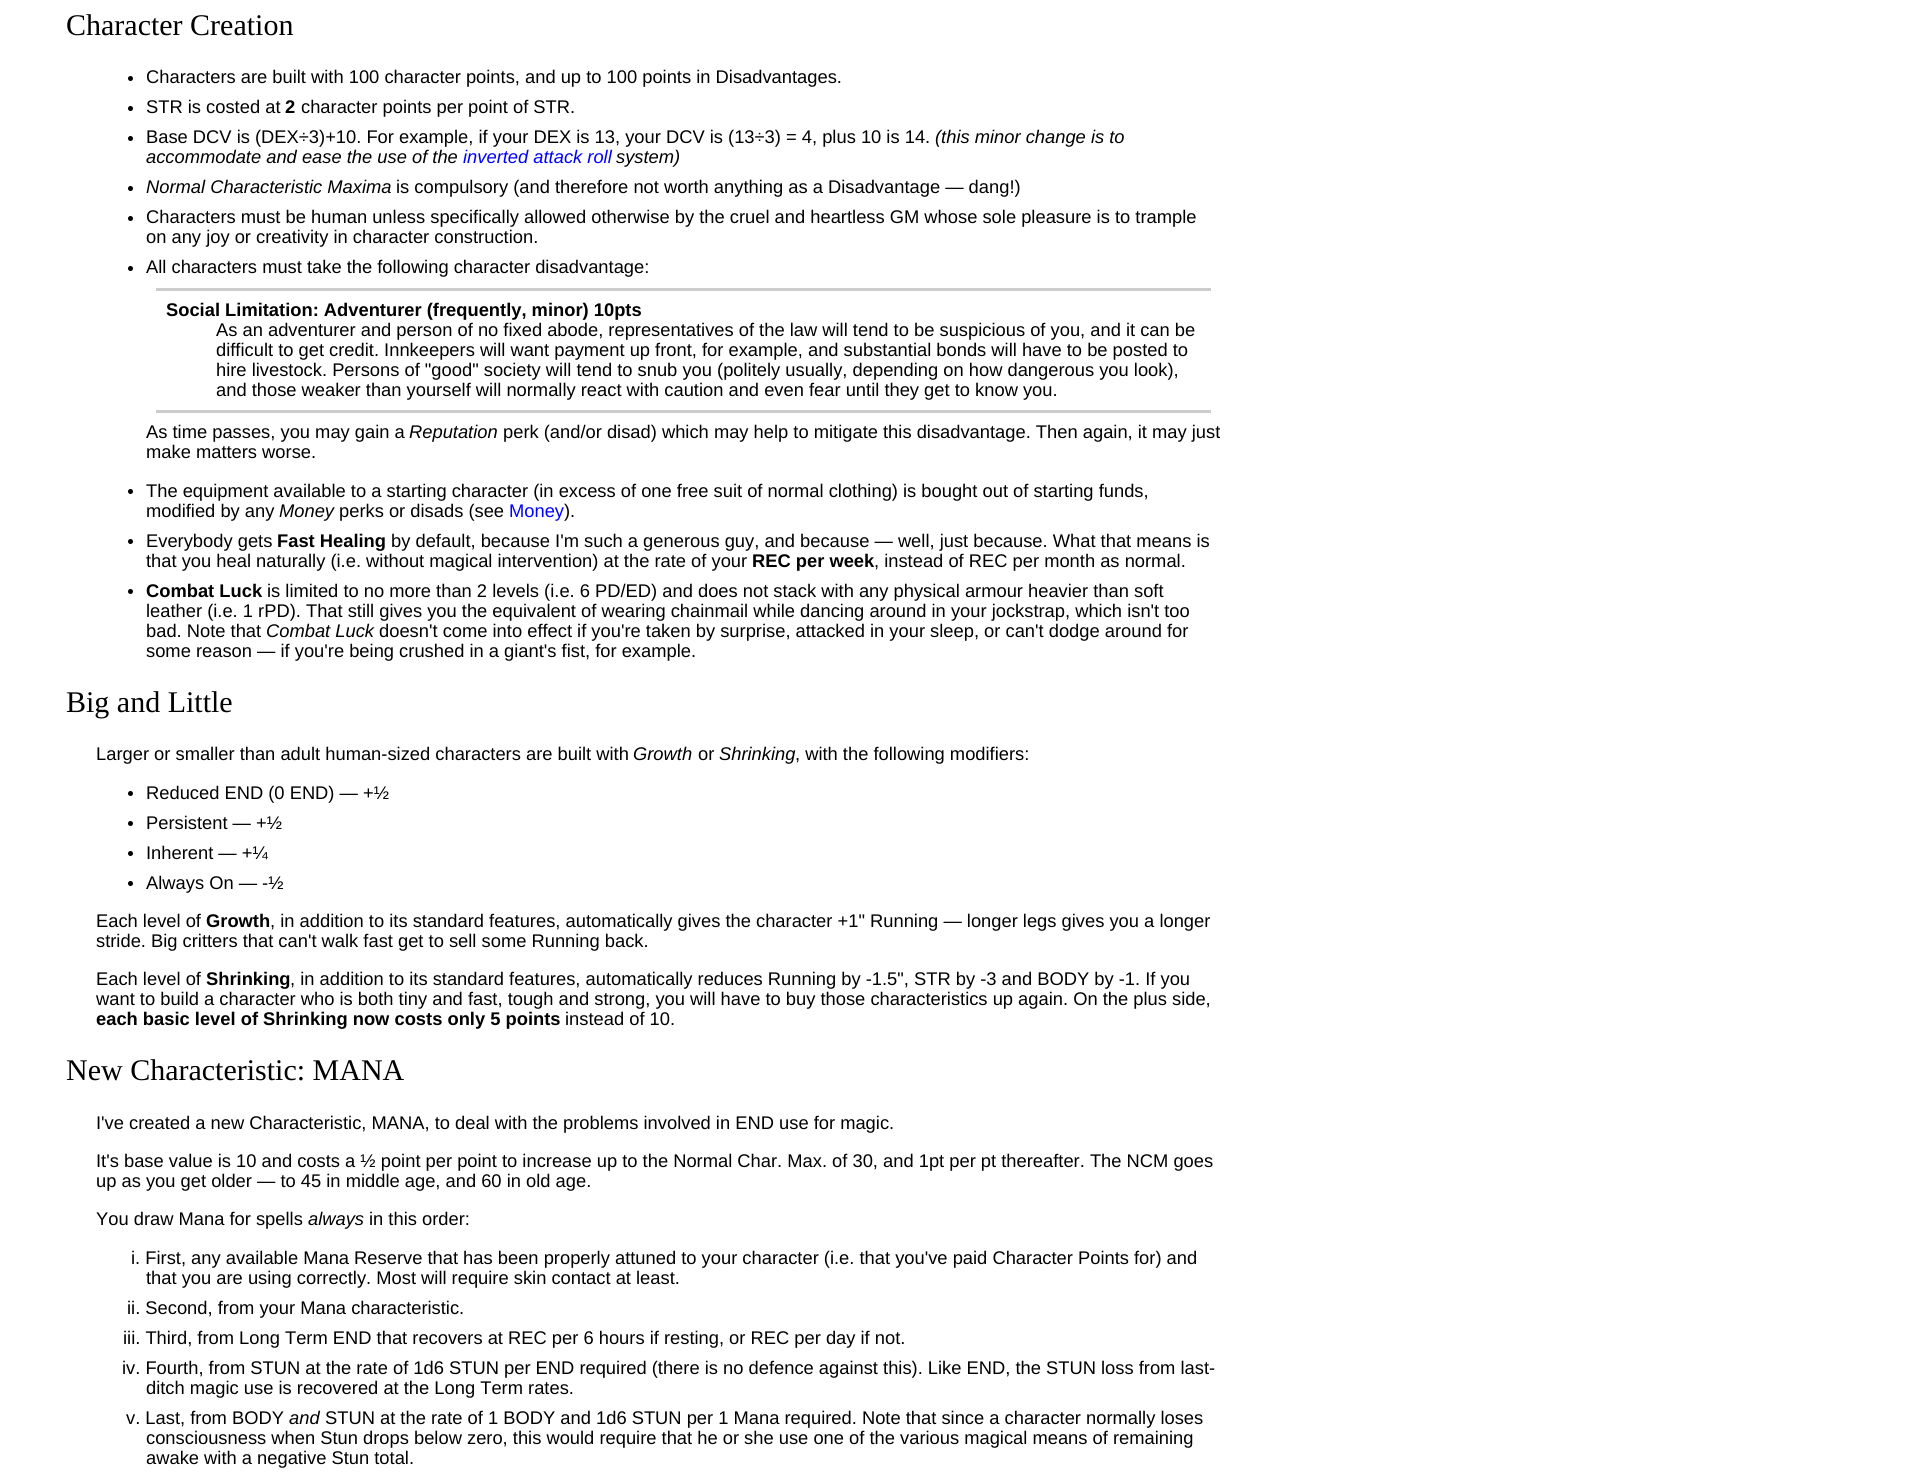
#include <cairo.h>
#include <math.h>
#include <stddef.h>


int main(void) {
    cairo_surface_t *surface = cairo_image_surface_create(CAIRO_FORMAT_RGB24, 1915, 1484);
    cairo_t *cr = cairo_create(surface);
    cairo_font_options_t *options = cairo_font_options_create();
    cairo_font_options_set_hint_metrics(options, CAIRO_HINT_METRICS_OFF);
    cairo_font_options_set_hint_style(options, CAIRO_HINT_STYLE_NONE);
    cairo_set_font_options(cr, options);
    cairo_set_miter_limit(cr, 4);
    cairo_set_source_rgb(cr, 1, 1, 1);
    cairo_paint(cr);
    cairo_select_font_face(cr, "Liberation Serif", CAIRO_FONT_SLANT_NORMAL, CAIRO_FONT_WEIGHT_NORMAL);
    cairo_set_font_size(cr, 30);
    cairo_set_source_rgb(cr, 0, 0, 0);
    cairo_move_to(cr, 66, 35);
    cairo_show_text(cr, "Character Creation");
    cairo_new_path(cr);
    cairo_arc(cr, 130.5, 78.5, 2.5, 0, 2 * M_PI);
    cairo_fill(cr);
    cairo_select_font_face(cr, "Liberation Sans", CAIRO_FONT_SLANT_NORMAL, CAIRO_FONT_WEIGHT_NORMAL);
    cairo_set_font_size(cr, 18.33);
    cairo_move_to(cr, 146, 83);
    cairo_show_text(cr, "Characters are built with 100 character points, and up to 100 points in Disadvantages.");
    cairo_new_path(cr);
    cairo_arc(cr, 130.5, 108.5, 2.5, 0, 2 * M_PI);
    cairo_fill(cr);
    cairo_move_to(cr, 146, 113);
    cairo_show_text(cr, "STR is costed at");
    cairo_select_font_face(cr, "Liberation Sans", CAIRO_FONT_SLANT_NORMAL, CAIRO_FONT_WEIGHT_BOLD);
    cairo_move_to(cr, 285, 113);
    cairo_show_text(cr, "2");
    cairo_select_font_face(cr, "Liberation Sans", CAIRO_FONT_SLANT_NORMAL, CAIRO_FONT_WEIGHT_NORMAL);
    cairo_move_to(cr, 301, 113);
    cairo_show_text(cr, "character points per point of STR.");
    cairo_new_path(cr);
    cairo_arc(cr, 130.5, 138.5, 2.5, 0, 2 * M_PI);
    cairo_fill(cr);
    cairo_move_to(cr, 146, 143);
    cairo_show_text(cr, "Base DCV is (DEX÷3)+10. For example, if your DEX is 13, your DCV is (13÷3) = 4, plus 10 is 14.");
    cairo_select_font_face(cr, "Liberation Sans", CAIRO_FONT_SLANT_ITALIC, CAIRO_FONT_WEIGHT_NORMAL);
    cairo_move_to(cr, 935, 143);
    cairo_show_text(cr, "(this minor change is to");
    cairo_move_to(cr, 146, 163);
    cairo_show_text(cr, "accommodate and ease the use of the");
    cairo_set_source_rgb(cr, 0, 0, 1);
    cairo_move_to(cr, 463, 163);
    cairo_show_text(cr, "inverted attack roll");
    cairo_set_source_rgb(cr, 0, 0, 0);
    cairo_move_to(cr, 616, 163);
    cairo_show_text(cr, "system)");
    cairo_new_path(cr);
    cairo_arc(cr, 130.5, 188.5, 2.5, 0, 2 * M_PI);
    cairo_fill(cr);
    cairo_move_to(cr, 146, 193);
    cairo_show_text(cr, "Normal Characteristic Maxima");
    cairo_select_font_face(cr, "Liberation Sans", CAIRO_FONT_SLANT_NORMAL, CAIRO_FONT_WEIGHT_NORMAL);
    cairo_move_to(cr, 396, 193);
    cairo_show_text(cr, "is compulsory (and therefore not worth anything as a Disadvantage — dang!)");
    cairo_new_path(cr);
    cairo_arc(cr, 130.5, 218.5, 2.5, 0, 2 * M_PI);
    cairo_fill(cr);
    cairo_move_to(cr, 146, 223);
    cairo_show_text(cr, "Characters must be human unless specifically allowed otherwise by the cruel and heartless GM whose sole pleasure is to trample");
    cairo_move_to(cr, 146, 243);
    cairo_show_text(cr, "on any joy or creativity in character construction.");
    cairo_new_path(cr);
    cairo_arc(cr, 130.5, 268.5, 2.5, 0, 2 * M_PI);
    cairo_fill(cr);
    cairo_move_to(cr, 146, 273);
    cairo_show_text(cr, "All characters must take the following character disadvantage:");
    cairo_set_source_rgb(cr, 0.8, 0.8, 0.8);
    cairo_rectangle(cr, 156, 288, 1055, 3);
    cairo_fill(cr);
    cairo_rectangle(cr, 156, 410, 1055, 3);
    cairo_fill(cr);
    cairo_select_font_face(cr, "Liberation Sans", CAIRO_FONT_SLANT_NORMAL, CAIRO_FONT_WEIGHT_BOLD);
    cairo_set_source_rgb(cr, 0, 0, 0);
    cairo_move_to(cr, 166, 316);
    cairo_show_text(cr, "Social Limitation: Adventurer (frequently, minor) 10pts");
    cairo_select_font_face(cr, "Liberation Sans", CAIRO_FONT_SLANT_NORMAL, CAIRO_FONT_WEIGHT_NORMAL);
    cairo_move_to(cr, 216, 336);
    cairo_show_text(cr, "As an adventurer and person of no fixed abode, representatives of the law will tend to be suspicious of you, and it can be");
    cairo_move_to(cr, 216, 356);
    cairo_show_text(cr, "difficult to get credit. Innkeepers will want payment up front, for example, and substantial bonds will have to be posted to");
    cairo_move_to(cr, 216, 376);
    cairo_show_text(cr, "hire livestock. Persons of \"good\" society will tend to snub you (politely usually, depending on how dangerous you look),");
    cairo_move_to(cr, 216, 396);
    cairo_show_text(cr, "and those weaker than yourself will normally react with caution and even fear until they get to know you.");
    cairo_move_to(cr, 146, 438);
    cairo_show_text(cr, "As time passes, you may gain a");
    cairo_select_font_face(cr, "Liberation Sans", CAIRO_FONT_SLANT_ITALIC, CAIRO_FONT_WEIGHT_NORMAL);
    cairo_move_to(cr, 409, 438);
    cairo_show_text(cr, "Reputation");
    cairo_select_font_face(cr, "Liberation Sans", CAIRO_FONT_SLANT_NORMAL, CAIRO_FONT_WEIGHT_NORMAL);
    cairo_move_to(cr, 503, 438);
    cairo_show_text(cr, "perk (and/or disad) which may help to mitigate this disadvantage. Then again, it may just");
    cairo_move_to(cr, 146, 458);
    cairo_show_text(cr, "make matters worse.");
    cairo_new_path(cr);
    cairo_arc(cr, 130.5, 491.5, 2.5, 0, 2 * M_PI);
    cairo_fill(cr);
    cairo_move_to(cr, 146, 497);
    cairo_show_text(cr, "The equipment available to a starting character (in excess of one free suit of normal clothing) is bought out of starting funds,");
    cairo_move_to(cr, 146, 517);
    cairo_show_text(cr, "modified by any");
    cairo_select_font_face(cr, "Liberation Sans", CAIRO_FONT_SLANT_ITALIC, CAIRO_FONT_WEIGHT_NORMAL);
    cairo_move_to(cr, 279, 517);
    cairo_show_text(cr, "Money");
    cairo_select_font_face(cr, "Liberation Sans", CAIRO_FONT_SLANT_NORMAL, CAIRO_FONT_WEIGHT_NORMAL);
    cairo_move_to(cr, 339, 517);
    cairo_show_text(cr, "perks or disads (see");
    cairo_set_source_rgb(cr, 0, 0, 1);
    cairo_move_to(cr, 509, 517);
    cairo_show_text(cr, "Money");
    cairo_set_source_rgb(cr, 0, 0, 0);
    cairo_move_to(cr, 564, 517);
    cairo_show_text(cr, ").");
    cairo_new_path(cr);
    cairo_arc(cr, 130.5, 541.5, 2.5, 0, 2 * M_PI);
    cairo_fill(cr);
    cairo_move_to(cr, 146, 547);
    cairo_show_text(cr, "Everybody gets");
    cairo_select_font_face(cr, "Liberation Sans", CAIRO_FONT_SLANT_NORMAL, CAIRO_FONT_WEIGHT_BOLD);
    cairo_move_to(cr, 277, 547);
    cairo_show_text(cr, "Fast Healing");
    cairo_select_font_face(cr, "Liberation Sans", CAIRO_FONT_SLANT_NORMAL, CAIRO_FONT_WEIGHT_NORMAL);
    cairo_move_to(cr, 391, 547);
    cairo_show_text(cr, "by default, because I'm such a generous guy, and because — well, just because. What that means is");
    cairo_move_to(cr, 146, 567);
    cairo_show_text(cr, "that you heal naturally (i.e. without magical intervention) at the rate of your");
    cairo_select_font_face(cr, "Liberation Sans", CAIRO_FONT_SLANT_NORMAL, CAIRO_FONT_WEIGHT_BOLD);
    cairo_move_to(cr, 752, 567);
    cairo_show_text(cr, "REC per week");
    cairo_select_font_face(cr, "Liberation Sans", CAIRO_FONT_SLANT_NORMAL, CAIRO_FONT_WEIGHT_NORMAL);
    cairo_move_to(cr, 874, 567);
    cairo_show_text(cr, ", instead of REC per month as normal.");
    cairo_new_path(cr);
    cairo_arc(cr, 130.5, 591.5, 2.5, 0, 2 * M_PI);
    cairo_fill(cr);
    cairo_select_font_face(cr, "Liberation Sans", CAIRO_FONT_SLANT_NORMAL, CAIRO_FONT_WEIGHT_BOLD);
    cairo_move_to(cr, 146, 597);
    cairo_show_text(cr, "Combat Luck");
    cairo_select_font_face(cr, "Liberation Sans", CAIRO_FONT_SLANT_NORMAL, CAIRO_FONT_WEIGHT_NORMAL);
    cairo_move_to(cr, 267, 597);
    cairo_show_text(cr, "is limited to no more than 2 levels (i.e. 6 PD/ED) and does not stack with any physical armour heavier than soft");
    cairo_move_to(cr, 146, 617);
    cairo_show_text(cr, "leather (i.e. 1 rPD). That still gives you the equivalent of wearing chainmail while dancing around in your jockstrap, which isn't too");
    cairo_move_to(cr, 146, 637);
    cairo_show_text(cr, "bad. Note that");
    cairo_select_font_face(cr, "Liberation Sans", CAIRO_FONT_SLANT_ITALIC, CAIRO_FONT_WEIGHT_NORMAL);
    cairo_move_to(cr, 266, 637);
    cairo_show_text(cr, "Combat Luck");
    cairo_select_font_face(cr, "Liberation Sans", CAIRO_FONT_SLANT_NORMAL, CAIRO_FONT_WEIGHT_NORMAL);
    cairo_move_to(cr, 379, 637);
    cairo_show_text(cr, "doesn't come into effect if you're taken by surprise, attacked in your sleep, or can't dodge around for");
    cairo_move_to(cr, 146, 657);
    cairo_show_text(cr, "some reason — if you're being crushed in a giant's fist, for example.");
    cairo_select_font_face(cr, "Liberation Serif", CAIRO_FONT_SLANT_NORMAL, CAIRO_FONT_WEIGHT_NORMAL);
    cairo_set_font_size(cr, 30);
    cairo_move_to(cr, 66, 712);
    cairo_show_text(cr, "Big and Little");
    cairo_select_font_face(cr, "Liberation Sans", CAIRO_FONT_SLANT_NORMAL, CAIRO_FONT_WEIGHT_NORMAL);
    cairo_set_font_size(cr, 18.33);
    cairo_move_to(cr, 96, 760);
    cairo_show_text(cr, "Larger or smaller than adult human-sized characters are built with");
    cairo_select_font_face(cr, "Liberation Sans", CAIRO_FONT_SLANT_ITALIC, CAIRO_FONT_WEIGHT_NORMAL);
    cairo_move_to(cr, 633, 760);
    cairo_show_text(cr, "Growth");
    cairo_select_font_face(cr, "Liberation Sans", CAIRO_FONT_SLANT_NORMAL, CAIRO_FONT_WEIGHT_NORMAL);
    cairo_move_to(cr, 698, 760);
    cairo_show_text(cr, "or");
    cairo_select_font_face(cr, "Liberation Sans", CAIRO_FONT_SLANT_ITALIC, CAIRO_FONT_WEIGHT_NORMAL);
    cairo_move_to(cr, 719, 760);
    cairo_show_text(cr, "Shrinking");
    cairo_select_font_face(cr, "Liberation Sans", CAIRO_FONT_SLANT_NORMAL, CAIRO_FONT_WEIGHT_NORMAL);
    cairo_move_to(cr, 795, 760);
    cairo_show_text(cr, ", with the following modifiers:");
    cairo_new_path(cr);
    cairo_arc(cr, 130.5, 793.5, 2.5, 0, 2 * M_PI);
    cairo_fill(cr);
    cairo_move_to(cr, 146, 799);
    cairo_show_text(cr, "Reduced END (0 END) — +½");
    cairo_new_path(cr);
    cairo_arc(cr, 130.5, 823.5, 2.5, 0, 2 * M_PI);
    cairo_fill(cr);
    cairo_move_to(cr, 146, 829);
    cairo_show_text(cr, "Persistent — +½");
    cairo_new_path(cr);
    cairo_arc(cr, 130.5, 853.5, 2.5, 0, 2 * M_PI);
    cairo_fill(cr);
    cairo_move_to(cr, 146, 859);
    cairo_show_text(cr, "Inherent — +¼");
    cairo_new_path(cr);
    cairo_arc(cr, 130.5, 883.5, 2.5, 0, 2 * M_PI);
    cairo_fill(cr);
    cairo_move_to(cr, 146, 889);
    cairo_show_text(cr, "Always On — -½");
    cairo_move_to(cr, 96, 927);
    cairo_show_text(cr, "Each level of");
    cairo_select_font_face(cr, "Liberation Sans", CAIRO_FONT_SLANT_NORMAL, CAIRO_FONT_WEIGHT_BOLD);
    cairo_move_to(cr, 206, 927);
    cairo_show_text(cr, "Growth");
    cairo_select_font_face(cr, "Liberation Sans", CAIRO_FONT_SLANT_NORMAL, CAIRO_FONT_WEIGHT_NORMAL);
    cairo_move_to(cr, 270, 927);
    cairo_show_text(cr, ", in addition to its standard features, automatically gives the character +1\" Running — longer legs gives you a longer");
    cairo_move_to(cr, 96, 947);
    cairo_show_text(cr, "stride. Big critters that can't walk fast get to sell some Running back.");
    cairo_move_to(cr, 96, 985);
    cairo_show_text(cr, "Each level of");
    cairo_select_font_face(cr, "Liberation Sans", CAIRO_FONT_SLANT_NORMAL, CAIRO_FONT_WEIGHT_BOLD);
    cairo_move_to(cr, 206, 985);
    cairo_show_text(cr, "Shrinking");
    cairo_select_font_face(cr, "Liberation Sans", CAIRO_FONT_SLANT_NORMAL, CAIRO_FONT_WEIGHT_NORMAL);
    cairo_move_to(cr, 290, 985);
    cairo_show_text(cr, ", in addition to its standard features, automatically reduces Running by -1.5\", STR by -3 and BODY by -1. If you");
    cairo_move_to(cr, 96, 1005);
    cairo_show_text(cr, "want to build a character who is both tiny and fast, tough and strong, you will have to buy those characteristics up again. On the plus side,");
    cairo_select_font_face(cr, "Liberation Sans", CAIRO_FONT_SLANT_NORMAL, CAIRO_FONT_WEIGHT_BOLD);
    cairo_move_to(cr, 96, 1025);
    cairo_show_text(cr, "each basic level of Shrinking now costs only 5 points");
    cairo_select_font_face(cr, "Liberation Sans", CAIRO_FONT_SLANT_NORMAL, CAIRO_FONT_WEIGHT_NORMAL);
    cairo_move_to(cr, 565, 1025);
    cairo_show_text(cr, "instead of 10.");
    cairo_select_font_face(cr, "Liberation Serif", CAIRO_FONT_SLANT_NORMAL, CAIRO_FONT_WEIGHT_NORMAL);
    cairo_set_font_size(cr, 30);
    cairo_move_to(cr, 66, 1080);
    cairo_show_text(cr, "New Characteristic: MANA");
    cairo_select_font_face(cr, "Liberation Sans", CAIRO_FONT_SLANT_NORMAL, CAIRO_FONT_WEIGHT_NORMAL);
    cairo_set_font_size(cr, 18.33);
    cairo_move_to(cr, 96, 1129);
    cairo_show_text(cr, "I've created a new Characteristic, MANA, to deal with the problems involved in END use for magic.");
    cairo_move_to(cr, 96, 1167);
    cairo_show_text(cr, "It's base value is 10 and costs a ½ point per point to increase up to the Normal Char. Max. of 30, and 1pt per pt thereafter. The NCM goes");
    cairo_move_to(cr, 96, 1187);
    cairo_show_text(cr, "up as you get older — to 45 in middle age, and 60 in old age.");
    cairo_move_to(cr, 96, 1225);
    cairo_show_text(cr, "You draw Mana for spells");
    cairo_select_font_face(cr, "Liberation Sans", CAIRO_FONT_SLANT_ITALIC, CAIRO_FONT_WEIGHT_NORMAL);
    cairo_move_to(cr, 308, 1225);
    cairo_show_text(cr, "always");
    cairo_select_font_face(cr, "Liberation Sans", CAIRO_FONT_SLANT_NORMAL, CAIRO_FONT_WEIGHT_NORMAL);
    cairo_move_to(cr, 369, 1225);
    cairo_show_text(cr, "in this order:");
    cairo_move_to(cr, 131, 1264);
    cairo_show_text(cr, "i. First, any available Mana Reserve that has been properly attuned to your character (i.e. that you've paid Character Points for) and");
    cairo_move_to(cr, 146, 1284);
    cairo_show_text(cr, "that you are using correctly. Most will require skin contact at least.");
    cairo_move_to(cr, 127, 1314);
    cairo_show_text(cr, "ii. Second, from your Mana characteristic.");
    cairo_move_to(cr, 123, 1344);
    cairo_show_text(cr, "iii. Third, from Long Term END that recovers at REC per 6 hours if resting, or REC per day if not.");
    cairo_move_to(cr, 122, 1374);
    cairo_show_text(cr, "iv. Fourth, from STUN at the rate of 1d6 STUN per END required (there is no defence against this). Like END, the STUN loss from last-");
    cairo_move_to(cr, 146, 1394);
    cairo_show_text(cr, "ditch magic use is recovered at the Long Term rates.");
    cairo_move_to(cr, 126, 1424);
    cairo_show_text(cr, "v. Last, from BODY");
    cairo_select_font_face(cr, "Liberation Sans", CAIRO_FONT_SLANT_ITALIC, CAIRO_FONT_WEIGHT_NORMAL);
    cairo_move_to(cr, 289, 1424);
    cairo_show_text(cr, "and");
    cairo_select_font_face(cr, "Liberation Sans", CAIRO_FONT_SLANT_NORMAL, CAIRO_FONT_WEIGHT_NORMAL);
    cairo_move_to(cr, 325, 1424);
    cairo_show_text(cr, "STUN at the rate of 1 BODY and 1d6 STUN per 1 Mana required. Note that since a character normally loses");
    cairo_move_to(cr, 146, 1444);
    cairo_show_text(cr, "consciousness when Stun drops below zero, this would require that he or she use one of the various magical means of remaining");
    cairo_move_to(cr, 146, 1464);
    cairo_show_text(cr, "awake with a negative Stun total.");
    cairo_surface_write_to_png(surface, "page.png");
    cairo_font_options_destroy(options);
    cairo_destroy(cr);
    cairo_surface_destroy(surface);
    return 0;
}
